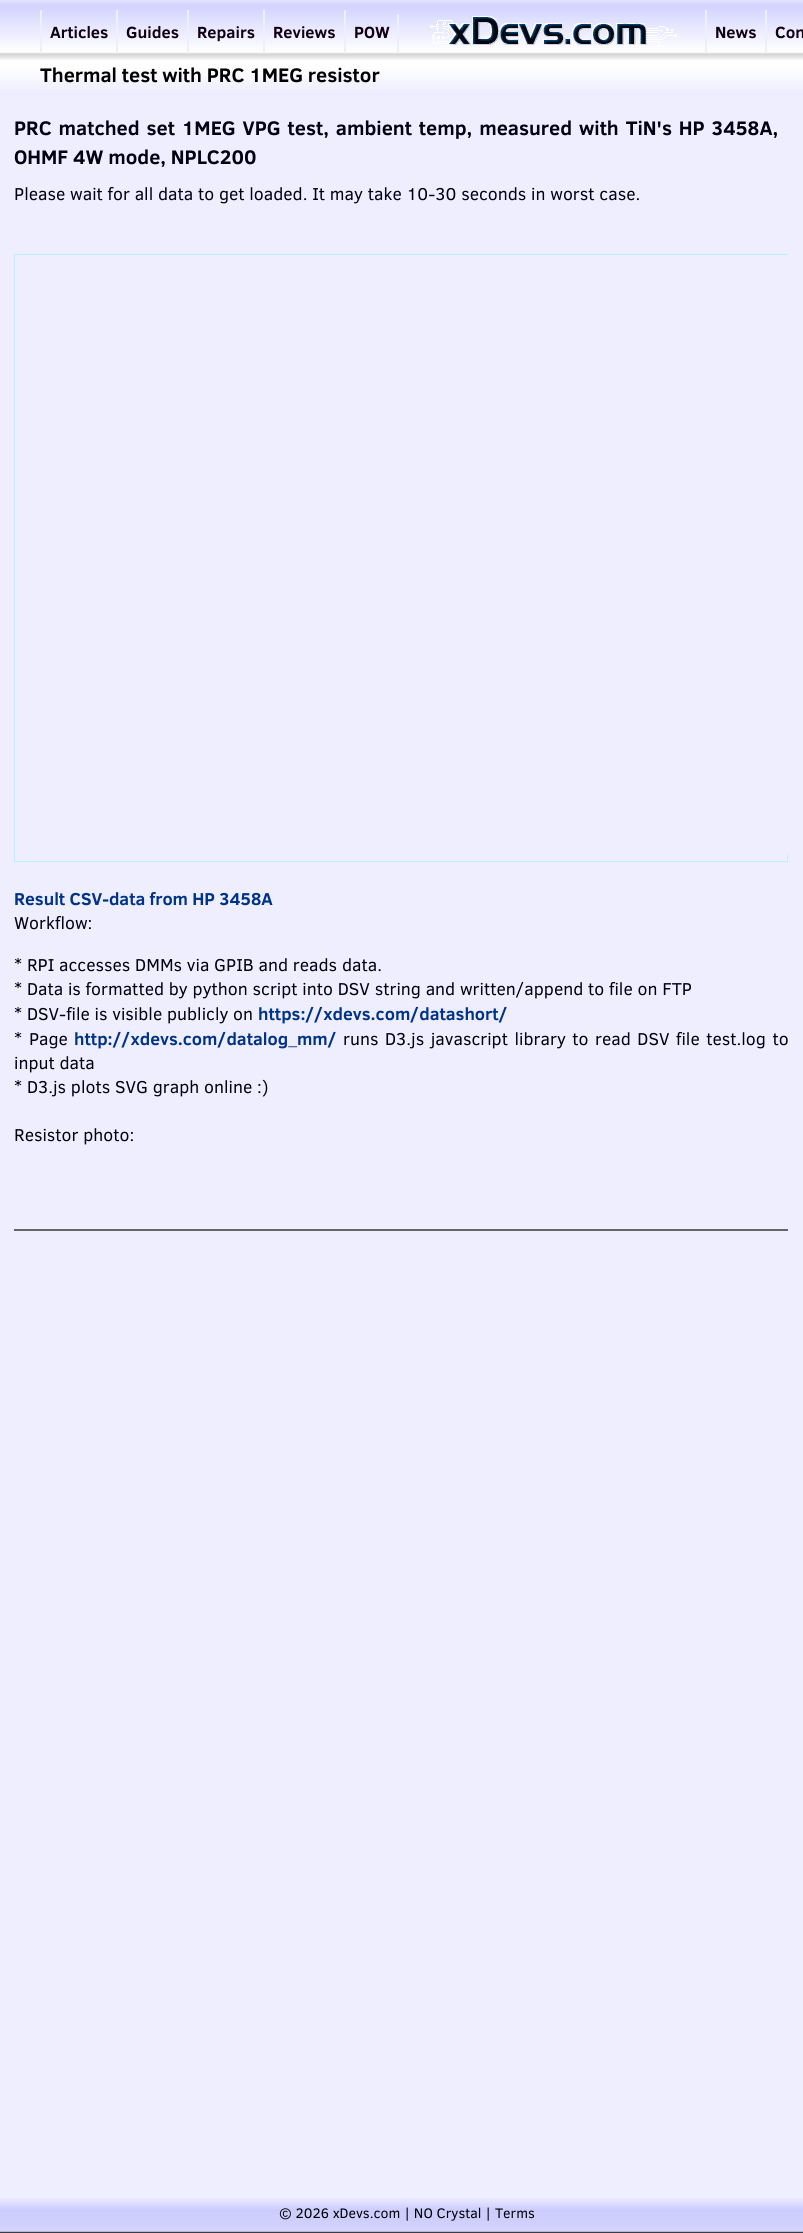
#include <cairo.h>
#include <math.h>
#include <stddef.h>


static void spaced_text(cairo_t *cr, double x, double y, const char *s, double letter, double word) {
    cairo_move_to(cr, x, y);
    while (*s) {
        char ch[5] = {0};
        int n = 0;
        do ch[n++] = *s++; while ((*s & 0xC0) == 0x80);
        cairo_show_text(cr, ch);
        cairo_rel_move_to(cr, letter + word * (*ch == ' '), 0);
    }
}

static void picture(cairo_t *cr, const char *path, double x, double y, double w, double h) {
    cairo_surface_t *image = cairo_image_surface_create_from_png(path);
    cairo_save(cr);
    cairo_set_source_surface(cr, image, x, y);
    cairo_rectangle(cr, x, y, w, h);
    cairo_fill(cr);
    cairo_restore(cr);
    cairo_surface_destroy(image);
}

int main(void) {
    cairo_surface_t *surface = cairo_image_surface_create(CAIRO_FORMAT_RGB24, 803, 2233);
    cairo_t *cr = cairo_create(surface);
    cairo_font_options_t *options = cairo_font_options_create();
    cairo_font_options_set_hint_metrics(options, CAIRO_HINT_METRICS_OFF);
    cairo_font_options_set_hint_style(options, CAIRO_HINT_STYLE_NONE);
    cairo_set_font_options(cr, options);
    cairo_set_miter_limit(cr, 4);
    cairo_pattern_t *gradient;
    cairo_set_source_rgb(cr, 0.933, 0.933, 1);
    cairo_paint(cr);
    gradient = cairo_pattern_create_linear(402, -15, 402, 52);
    cairo_pattern_add_color_stop_rgba(gradient, 0.1, 1, 1, 1, 1);
    cairo_pattern_add_color_stop_rgba(gradient, 0.3, 0.824, 0.824, 1, 1);
    cairo_pattern_add_color_stop_rgba(gradient, 1, 1, 1, 1, 1);
    cairo_set_source(cr, gradient);
    cairo_pattern_destroy(gradient);
    cairo_rectangle(cr, 0, 0, 803, 52);
    cairo_fill(cr);
    cairo_select_font_face(cr, "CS", CAIRO_FONT_SLANT_NORMAL, CAIRO_FONT_WEIGHT_BOLD);
    cairo_set_font_size(cr, 16.5);
    cairo_set_source_rgb(cr, 0.067, 0, 0.067);
    cairo_move_to(cr, 50, 38);
    cairo_show_text(cr, "Articles");
    cairo_set_source_rgb(cr, 0.933, 0.933, 1);
    cairo_rectangle(cr, 40, 10, 2, 42);
    cairo_fill(cr);
    cairo_set_source_rgb(cr, 0.067, 0, 0.067);
    cairo_move_to(cr, 126, 38);
    cairo_show_text(cr, "Guides");
    cairo_set_source_rgb(cr, 0.933, 0.933, 1);
    cairo_rectangle(cr, 116, 10, 2, 42);
    cairo_fill(cr);
    cairo_set_source_rgb(cr, 0.067, 0, 0.067);
    cairo_move_to(cr, 197, 38);
    cairo_show_text(cr, "Repairs");
    cairo_set_source_rgb(cr, 0.933, 0.933, 1);
    cairo_rectangle(cr, 187, 10, 2, 42);
    cairo_fill(cr);
    cairo_set_source_rgb(cr, 0.067, 0, 0.067);
    cairo_move_to(cr, 273, 38);
    cairo_show_text(cr, "Reviews");
    cairo_set_source_rgb(cr, 0.933, 0.933, 1);
    cairo_rectangle(cr, 263, 10, 2, 42);
    cairo_fill(cr);
    cairo_set_source_rgb(cr, 0.067, 0, 0.067);
    cairo_move_to(cr, 354, 38);
    cairo_show_text(cr, "POW");
    cairo_set_source_rgb(cr, 0.933, 0.933, 1);
    cairo_rectangle(cr, 344, 10, 2, 42);
    cairo_fill(cr);
    cairo_rectangle(cr, 397, 14, 2, 38);
    cairo_fill(cr);
    picture(cr, "img1.png", 430, 16, 247, 31);
    cairo_set_source_rgb(cr, 0.067, 0, 0.067);
    cairo_move_to(cr, 715, 38);
    cairo_show_text(cr, "News");
    cairo_set_source_rgb(cr, 0.933, 0.933, 1);
    cairo_rectangle(cr, 705, 10, 2, 42);
    cairo_fill(cr);
    cairo_set_source_rgb(cr, 0.067, 0, 0.067);
    cairo_move_to(cr, 775, 38);
    cairo_show_text(cr, "Con");
    cairo_set_source_rgb(cr, 0.933, 0.933, 1);
    cairo_rectangle(cr, 765, 10, 2, 42);
    cairo_fill(cr);
    gradient = cairo_pattern_create_linear(402, 52, 402, 95);
    cairo_pattern_add_color_stop_rgba(gradient, 0, 1, 1, 1, 1);
    cairo_pattern_add_color_stop_rgba(gradient, 0.05, 0.824, 0.824, 0.824, 1);
    cairo_pattern_add_color_stop_rgba(gradient, 0.2, 1, 1, 1, 1);
    cairo_pattern_add_color_stop_rgba(gradient, 0.35, 1, 1, 1, 1);
    cairo_pattern_add_color_stop_rgba(gradient, 1, 0.922, 0.922, 1, 1);
    cairo_set_source(cr, gradient);
    cairo_pattern_destroy(gradient);
    cairo_rectangle(cr, 0, 52, 803, 43);
    cairo_fill(cr);
    cairo_set_font_size(cr, 20);
    cairo_set_source_rgb(cr, 0, 0, 0);
    cairo_move_to(cr, 40, 82);
    cairo_show_text(cr, "Thermal test with PRC 1MEG resistor");
    cairo_set_source_rgb(cr, 0, 0, 0.067);
    spaced_text(cr, 14, 135, "PRC matched set 1MEG VPG test, ambient temp, measured with TiN's HP 3458A,", 0, 2.1);
    cairo_move_to(cr, 14, 164);
    cairo_show_text(cr, "OHMF 4W mode, NPLC200");
    cairo_select_font_face(cr, "CS", CAIRO_FONT_SLANT_NORMAL, CAIRO_FONT_WEIGHT_NORMAL);
    cairo_set_font_size(cr, 17.6);
    cairo_move_to(cr, 14, 200);
    cairo_show_text(cr, "Please wait for all data to get loaded. It may take 10-30 seconds in worst case.");
    cairo_rectangle(cr, 14.5, 254.5, 773, 607);
    cairo_set_source_rgb(cr, 0.733, 0.933, 1);
    cairo_set_line_width(cr, 1);
    cairo_stroke(cr);
    cairo_set_source_rgb(cr, 0.933, 0.933, 1);
    cairo_rectangle(cr, 787, 255, 1, 600);
    cairo_fill(cr);
    cairo_select_font_face(cr, "CS", CAIRO_FONT_SLANT_NORMAL, CAIRO_FONT_WEIGHT_BOLD);
    cairo_set_source_rgb(cr, 0, 0.2, 0.533);
    cairo_move_to(cr, 14, 905);
    cairo_show_text(cr, "Result CSV-data from HP 3458A");
    cairo_select_font_face(cr, "CS", CAIRO_FONT_SLANT_NORMAL, CAIRO_FONT_WEIGHT_NORMAL);
    cairo_set_source_rgb(cr, 0, 0, 0.067);
    cairo_move_to(cr, 14, 929);
    cairo_show_text(cr, "Workflow:");
    cairo_move_to(cr, 14, 971);
    cairo_show_text(cr, "* RPI accesses DMMs via GPIB and reads data.");
    cairo_move_to(cr, 14, 995);
    cairo_show_text(cr, "* Data is formatted by python script into DSV string and written/append to file on FTP");
    cairo_move_to(cr, 14, 1020);
    cairo_show_text(cr, "* DSV-file is visible publicly on");
    cairo_select_font_face(cr, "CS", CAIRO_FONT_SLANT_NORMAL, CAIRO_FONT_WEIGHT_BOLD);
    cairo_set_source_rgb(cr, 0, 0.2, 0.533);
    cairo_move_to(cr, 258, 1020);
    cairo_show_text(cr, "https://xdevs.com/datashort/");
    cairo_select_font_face(cr, "CS", CAIRO_FONT_SLANT_NORMAL, CAIRO_FONT_WEIGHT_NORMAL);
    cairo_set_source_rgb(cr, 0, 0, 0.067);
    spaced_text(cr, 14, 1045, "* Page", 0, 2);
    cairo_select_font_face(cr, "CS", CAIRO_FONT_SLANT_NORMAL, CAIRO_FONT_WEIGHT_BOLD);
    cairo_set_source_rgb(cr, 0, 0.2, 0.533);
    cairo_move_to(cr, 74, 1045);
    cairo_show_text(cr, "http://xdevs.com/datalog_mm/");
    cairo_select_font_face(cr, "CS", CAIRO_FONT_SLANT_NORMAL, CAIRO_FONT_WEIGHT_NORMAL);
    cairo_set_source_rgb(cr, 0, 0, 0.067);
    spaced_text(cr, 343, 1045, "runs D3.js javascript library to read DSV file test.log to", 0, 1.75);
    cairo_move_to(cr, 14, 1069);
    cairo_show_text(cr, "input data");
    cairo_move_to(cr, 14, 1093);
    cairo_show_text(cr, "* D3.js plots SVG graph online :)");
    cairo_move_to(cr, 14, 1141);
    cairo_show_text(cr, "Resistor photo:");
    cairo_set_source_rgb(cr, 0.4, 0.4, 0.4);
    cairo_rectangle(cr, 14, 1229, 774, 2);
    cairo_fill(cr);
    gradient = cairo_pattern_create_linear(407, 2198, 407, 2233);
    cairo_pattern_add_color_stop_rgba(gradient, 0, 0.922, 0.922, 1, 1);
    cairo_pattern_add_color_stop_rgba(gradient, 0.35, 0.796, 0.796, 1, 1);
    cairo_pattern_add_color_stop_rgba(gradient, 0.95, 0.827, 0.827, 0.984, 1);
    cairo_pattern_add_color_stop_rgba(gradient, 1, 0, 0, 0, 1);
    cairo_set_source(cr, gradient);
    cairo_pattern_destroy(gradient);
    cairo_rectangle(cr, 0, 2198, 803, 35);
    cairo_fill(cr);
    cairo_set_font_size(cr, 14.1);
    cairo_set_source_rgb(cr, 0, 0, 0);
    cairo_move_to(cr, 279, 2218);
    cairo_show_text(cr, "© 2026 xDevs.com | NO Crystal | Terms");
    cairo_surface_write_to_png(surface, "page.png");
    cairo_font_options_destroy(options);
    cairo_destroy(cr);
    cairo_surface_destroy(surface);
    return 0;
}
